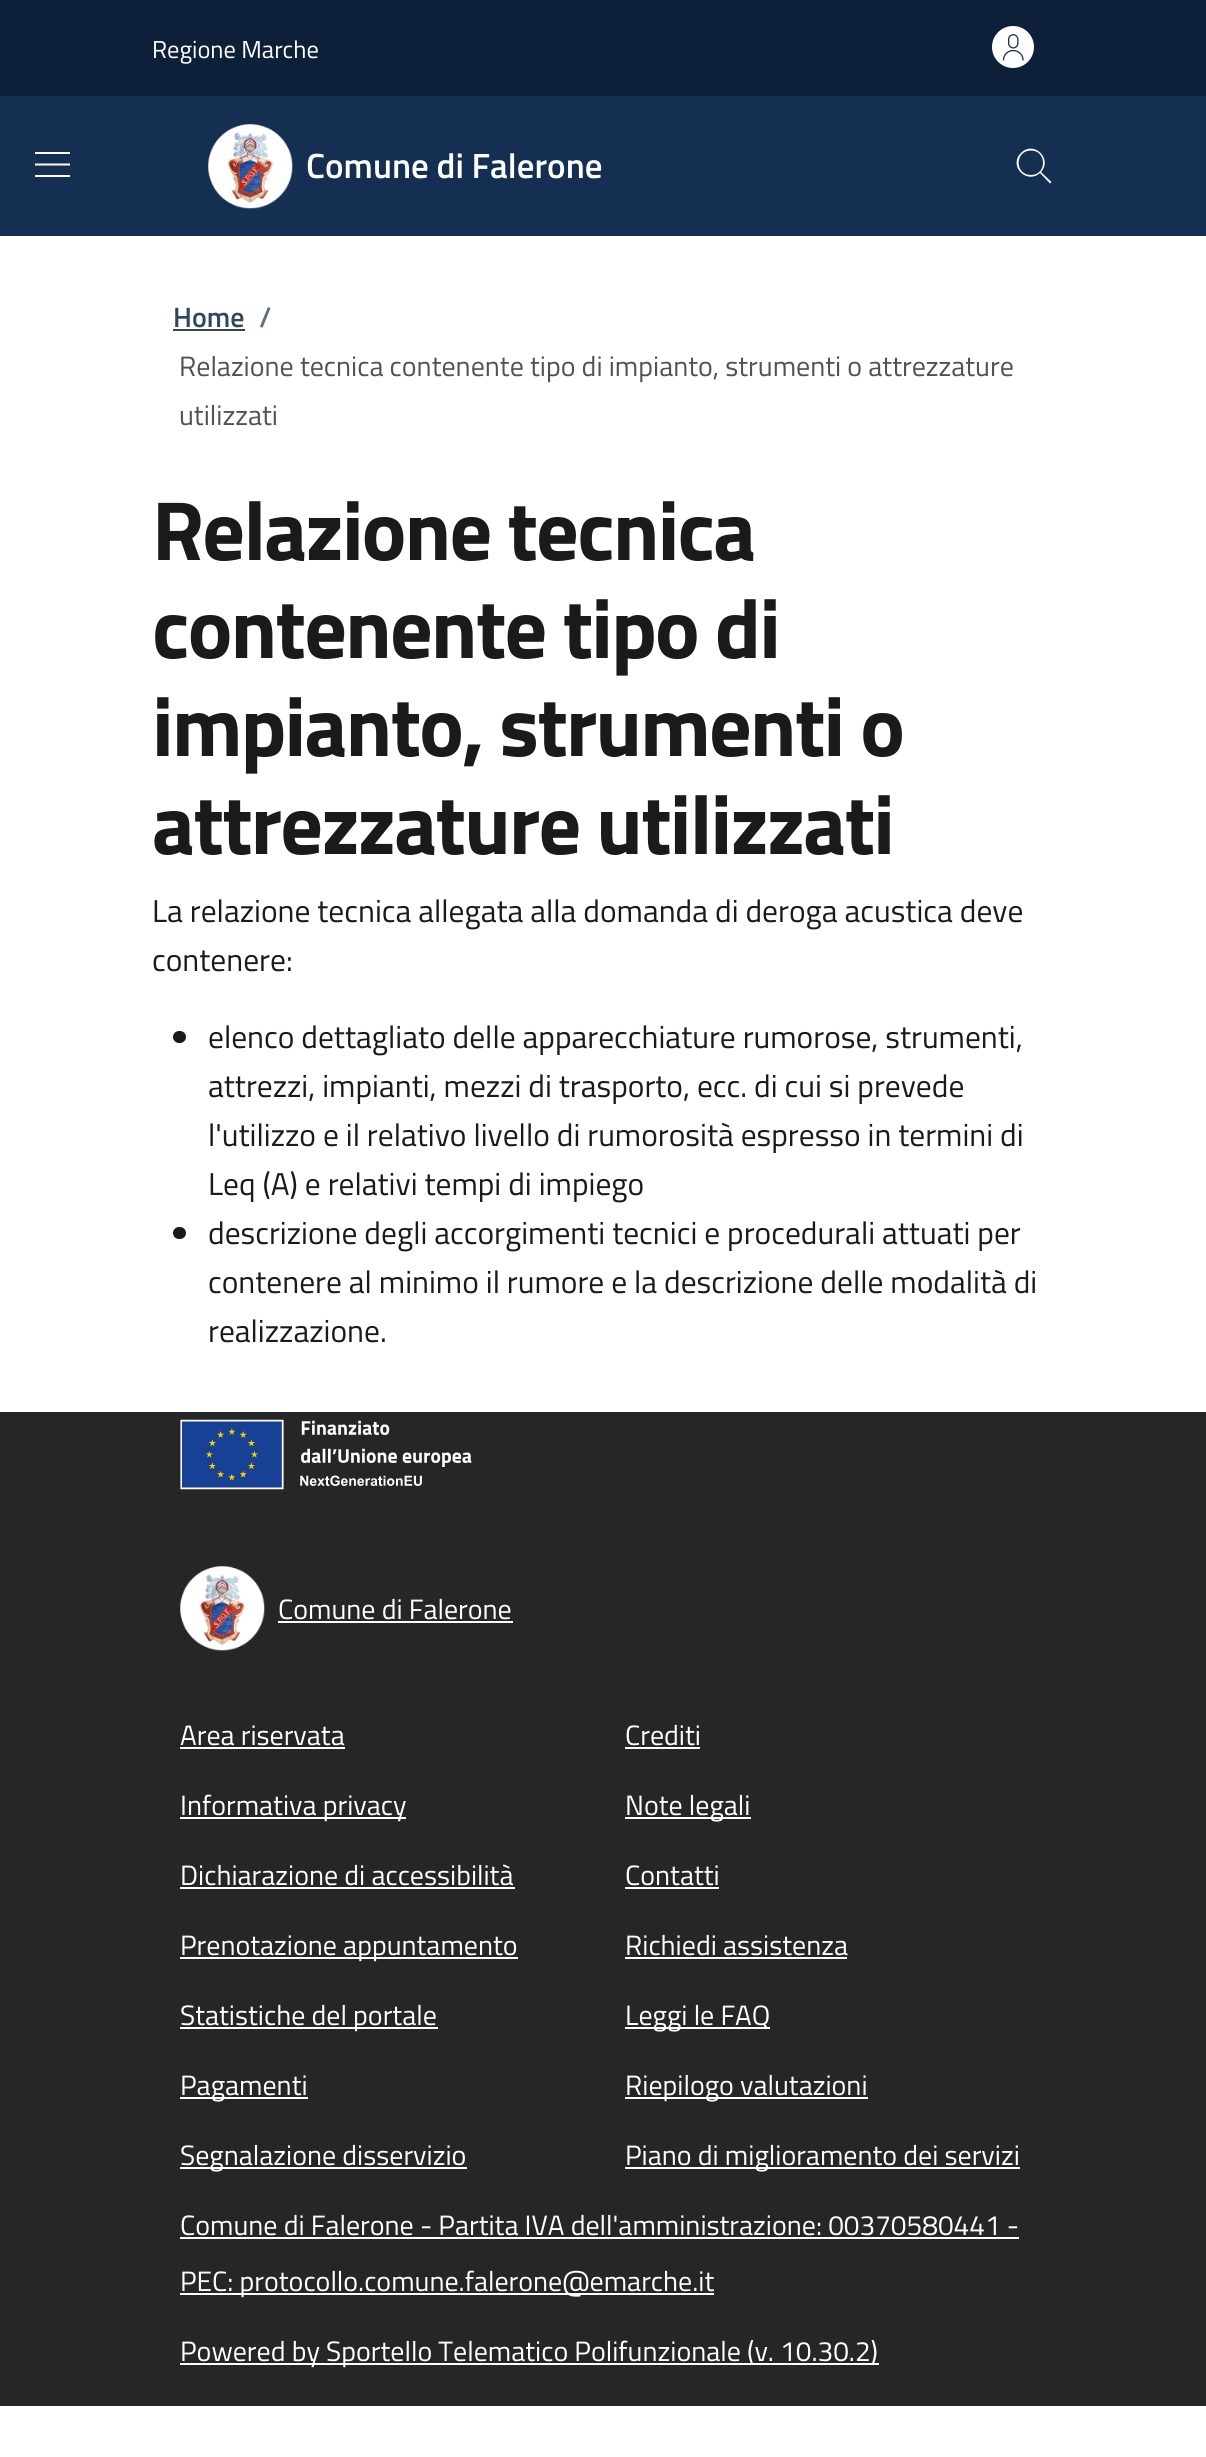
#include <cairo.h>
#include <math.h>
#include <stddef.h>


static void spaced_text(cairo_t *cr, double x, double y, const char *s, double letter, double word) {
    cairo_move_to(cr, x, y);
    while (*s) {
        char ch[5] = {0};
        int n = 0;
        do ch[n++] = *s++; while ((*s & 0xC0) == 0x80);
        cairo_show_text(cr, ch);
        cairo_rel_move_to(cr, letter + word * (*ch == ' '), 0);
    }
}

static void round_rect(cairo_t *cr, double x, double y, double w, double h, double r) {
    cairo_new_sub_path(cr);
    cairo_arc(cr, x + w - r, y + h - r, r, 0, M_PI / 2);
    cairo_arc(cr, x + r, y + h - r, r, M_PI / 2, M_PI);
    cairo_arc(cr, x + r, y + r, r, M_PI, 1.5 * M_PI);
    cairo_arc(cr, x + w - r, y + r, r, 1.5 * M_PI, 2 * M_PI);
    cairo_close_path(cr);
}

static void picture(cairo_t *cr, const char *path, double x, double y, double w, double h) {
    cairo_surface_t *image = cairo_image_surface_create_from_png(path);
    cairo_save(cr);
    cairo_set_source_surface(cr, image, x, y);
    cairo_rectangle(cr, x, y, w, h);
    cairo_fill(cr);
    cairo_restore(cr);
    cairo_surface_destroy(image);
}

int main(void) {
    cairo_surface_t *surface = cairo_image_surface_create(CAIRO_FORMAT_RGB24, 1206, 2457);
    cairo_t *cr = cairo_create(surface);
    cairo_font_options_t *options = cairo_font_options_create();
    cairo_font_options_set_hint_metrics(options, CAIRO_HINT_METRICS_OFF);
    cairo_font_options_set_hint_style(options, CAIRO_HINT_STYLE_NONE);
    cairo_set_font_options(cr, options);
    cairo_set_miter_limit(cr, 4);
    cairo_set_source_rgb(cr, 1, 1, 1);
    cairo_paint(cr);
    cairo_set_source_rgb(cr, 0.055, 0.125, 0.224);
    cairo_rectangle(cr, 0, 0, 1206, 96);
    cairo_fill(cr);
    cairo_select_font_face(cr, "Titillium Web", CAIRO_FONT_SLANT_NORMAL, CAIRO_FONT_WEIGHT_NORMAL);
    cairo_set_font_size(cr, 24.5);
    cairo_set_source_rgb(cr, 1, 1, 1);
    cairo_move_to(cr, 152, 58);
    cairo_show_text(cr, "Regione Marche");
    cairo_new_path(cr);
    cairo_arc(cr, 1013, 47, 21, 0, 2 * M_PI);
    cairo_fill(cr);
    picture(cr, "img1.png", 1002, 34, 22, 27);
    cairo_set_source_rgb(cr, 0.082, 0.184, 0.322);
    cairo_rectangle(cr, 0, 96, 1206, 140);
    cairo_fill(cr);
    cairo_set_source_rgb(cr, 1, 1, 1);
    cairo_new_path(cr);
    cairo_move_to(cr, 70, 152);
    cairo_line_to(cr, 70, 154);
    cairo_line_to(cr, 35, 154);
    cairo_line_to(cr, 35, 152);
    cairo_close_path(cr);
    cairo_move_to(cr, 35, 165.5);
    cairo_line_to(cr, 70, 165.5);
    cairo_line_to(cr, 70, 163.5);
    cairo_line_to(cr, 35, 163.5);
    cairo_close_path(cr);
    cairo_move_to(cr, 35, 177);
    cairo_line_to(cr, 70, 177);
    cairo_line_to(cr, 70, 175);
    cairo_line_to(cr, 35, 175);
    cairo_close_path(cr);
    cairo_fill(cr);
    picture(cr, "img2.png", 208, 124, 85, 85);
    cairo_select_font_face(cr, "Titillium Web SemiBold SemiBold", CAIRO_FONT_SLANT_NORMAL, CAIRO_FONT_WEIGHT_NORMAL);
    cairo_set_font_size(cr, 35);
    cairo_move_to(cr, 306, 178);
    cairo_show_text(cr, "Comune di Falerone");
    cairo_new_path(cr);
    cairo_move_to(cr, 1051.5, 182);
    cairo_line_to(cr, 1041, 172);
    cairo_curve_to(cr, 1053, 158.5, 1033.5, 140, 1021, 153);
    cairo_curve_to(cr, 1008, 165.5, 1026.5, 185, 1040, 173);
    cairo_line_to(cr, 1050, 183.5);
    cairo_close_path(cr);
    cairo_move_to(cr, 1031, 175);
    cairo_curve_to(cr, 1014.5, 175, 1014.5, 150.5, 1031, 150.5);
    cairo_curve_to(cr, 1047, 150.5, 1047, 175, 1031, 175);
    cairo_close_path(cr);
    cairo_fill(cr);
    cairo_set_font_size(cr, 28);
    cairo_set_source_rgb(cr, 0.188, 0.278, 0.373);
    cairo_move_to(cr, 173, 327);
    cairo_show_text(cr, "Home");
    cairo_rectangle(cr, 173, 329, 72, 2);
    cairo_fill(cr);
    cairo_set_source_rgb(cr, 0.365, 0.439, 0.514);
    cairo_move_to(cr, 259, 327);
    cairo_show_text(cr, "/");
    cairo_select_font_face(cr, "Titillium Web", CAIRO_FONT_SLANT_NORMAL, CAIRO_FONT_WEIGHT_NORMAL);
    cairo_set_source_rgb(cr, 0.322, 0.322, 0.322);
    cairo_move_to(cr, 179, 376);
    cairo_show_text(cr, "Relazione tecnica contenente tipo di impianto, strumenti o attrezzature");
    cairo_move_to(cr, 179, 425);
    cairo_show_text(cr, "utilizzati");
    cairo_select_font_face(cr, "Titillium Web", CAIRO_FONT_SLANT_NORMAL, CAIRO_FONT_WEIGHT_BOLD);
    cairo_set_font_size(cr, 84);
    cairo_set_source_rgb(cr, 0.102, 0.102, 0.102);
    spaced_text(cr, 152, 560, "Relazione tecnica", -1.75, 0);
    spaced_text(cr, 152, 658, "contenente tipo di", -1.75, 0);
    spaced_text(cr, 152, 756, "impianto, strumenti o", -1.75, 0);
    spaced_text(cr, 152, 854, "attrezzature utilizzati", -1.75, 0);
    cairo_select_font_face(cr, "Titillium Web", CAIRO_FONT_SLANT_NORMAL, CAIRO_FONT_WEIGHT_NORMAL);
    cairo_set_font_size(cr, 31.5);
    cairo_move_to(cr, 152, 922);
    cairo_show_text(cr, "La relazione tecnica allegata alla domanda di deroga acustica deve");
    cairo_move_to(cr, 152, 971);
    cairo_show_text(cr, "contenere:");
    round_rect(cr, 173, 1031, 13, 12, 6);
    cairo_fill(cr);
    cairo_move_to(cr, 208, 1048);
    cairo_show_text(cr, "elenco dettagliato delle apparecchiature rumorose, strumenti,");
    cairo_move_to(cr, 208, 1097);
    cairo_show_text(cr, "attrezzi, impianti, mezzi di trasporto, ecc. di cui si prevede");
    cairo_move_to(cr, 208, 1146);
    cairo_show_text(cr, "l'utilizzo e il relativo livello di rumorosità espresso in termini di");
    cairo_move_to(cr, 208, 1195);
    cairo_show_text(cr, "Leq (A) e relativi tempi di impiego");
    round_rect(cr, 173, 1227, 13, 12, 6);
    cairo_fill(cr);
    cairo_move_to(cr, 208, 1244);
    cairo_show_text(cr, "descrizione degli accorgimenti tecnici e procedurali attuati per");
    cairo_move_to(cr, 208, 1293);
    cairo_show_text(cr, "contenere al minimo il rumore e la descrizione delle modalità di");
    cairo_move_to(cr, 208, 1342);
    cairo_show_text(cr, "realizzazione.");
    cairo_set_source_rgb(cr, 0.149, 0.149, 0.149);
    cairo_rectangle(cr, 0, 1412, 1206, 994);
    cairo_fill(cr);
    picture(cr, "img3.png", 180, 1419, 292, 71);
    picture(cr, "img4.png", 180, 1566, 85, 85);
    cairo_set_font_size(cr, 28);
    cairo_set_source_rgb(cr, 1, 1, 1);
    cairo_move_to(cr, 278, 1619);
    cairo_show_text(cr, "Comune di Falerone");
    cairo_rectangle(cr, 278, 1621, 235, 2);
    cairo_fill(cr);
    cairo_move_to(cr, 180, 1745);
    cairo_show_text(cr, "Area riservata");
    cairo_rectangle(cr, 180, 1747, 165, 2);
    cairo_fill(cr);
    cairo_move_to(cr, 625, 1745);
    cairo_show_text(cr, "Crediti");
    cairo_rectangle(cr, 625, 1747, 75, 2);
    cairo_fill(cr);
    cairo_rectangle(cr, 180, 1817, 226, 2);
    cairo_fill(cr);
    cairo_move_to(cr, 180, 1815);
    cairo_show_text(cr, "Informativa privacy");
    cairo_rectangle(cr, 625, 1817, 126, 2);
    cairo_fill(cr);
    cairo_move_to(cr, 625, 1815);
    cairo_show_text(cr, "Note legali");
    cairo_move_to(cr, 180, 1885);
    cairo_show_text(cr, "Dichiarazione di accessibilità");
    cairo_rectangle(cr, 180, 1887, 335, 2);
    cairo_fill(cr);
    cairo_move_to(cr, 625, 1885);
    cairo_show_text(cr, "Contatti");
    cairo_rectangle(cr, 625, 1887, 94, 2);
    cairo_fill(cr);
    cairo_rectangle(cr, 180, 1957, 338, 2);
    cairo_fill(cr);
    cairo_move_to(cr, 180, 1955);
    cairo_show_text(cr, "Prenotazione appuntamento");
    cairo_move_to(cr, 625, 1955);
    cairo_show_text(cr, "Richiedi assistenza");
    cairo_rectangle(cr, 625, 1957, 222, 2);
    cairo_fill(cr);
    cairo_rectangle(cr, 180, 2027, 258, 2);
    cairo_fill(cr);
    cairo_move_to(cr, 180, 2025);
    cairo_show_text(cr, "Statistiche del portale");
    cairo_rectangle(cr, 625, 2027, 145, 2);
    cairo_fill(cr);
    cairo_move_to(cr, 625, 2025);
    cairo_show_text(cr, "Leggi le FAQ");
    cairo_rectangle(cr, 180, 2097, 128, 2);
    cairo_fill(cr);
    cairo_move_to(cr, 180, 2095);
    cairo_show_text(cr, "Pagamenti");
    cairo_rectangle(cr, 625, 2097, 243, 2);
    cairo_fill(cr);
    cairo_move_to(cr, 625, 2095);
    cairo_show_text(cr, "Riepilogo valutazioni");
    cairo_rectangle(cr, 180, 2167, 287, 2);
    cairo_fill(cr);
    cairo_move_to(cr, 180, 2165);
    cairo_show_text(cr, "Segnalazione disservizio");
    cairo_rectangle(cr, 625, 2167, 395, 2);
    cairo_fill(cr);
    cairo_move_to(cr, 625, 2165);
    cairo_show_text(cr, "Piano di miglioramento dei servizi");
    cairo_move_to(cr, 180, 2235);
    cairo_show_text(cr, "Comune di Falerone - Partita IVA dell'amministrazione: 00370580441 -");
    cairo_rectangle(cr, 180, 2237, 839, 2);
    cairo_fill(cr);
    cairo_rectangle(cr, 180, 2293, 534, 2);
    cairo_fill(cr);
    cairo_move_to(cr, 180, 2291);
    cairo_show_text(cr, "PEC: protocollo.comune.falerone@emarche.it");
    cairo_rectangle(cr, 180, 2363, 699, 2);
    cairo_fill(cr);
    cairo_move_to(cr, 180, 2361);
    cairo_show_text(cr, "Powered by Sportello Telematico Polifunzionale (v. 10.30.2)");
    cairo_surface_write_to_png(surface, "page.png");
    cairo_font_options_destroy(options);
    cairo_destroy(cr);
    cairo_surface_destroy(surface);
    return 0;
}
